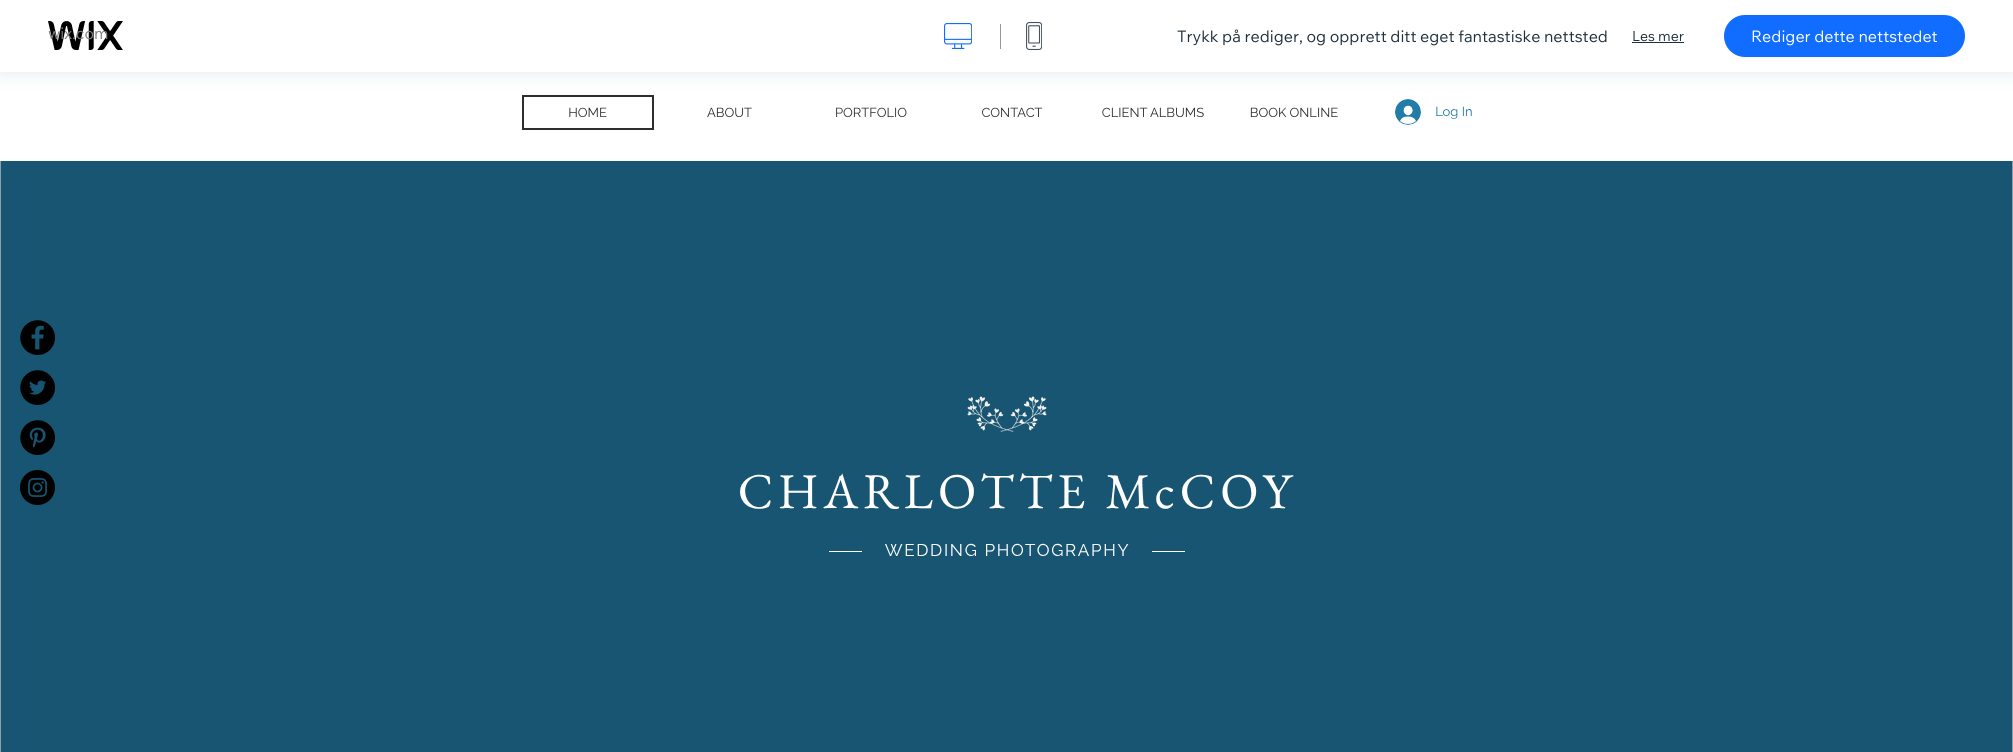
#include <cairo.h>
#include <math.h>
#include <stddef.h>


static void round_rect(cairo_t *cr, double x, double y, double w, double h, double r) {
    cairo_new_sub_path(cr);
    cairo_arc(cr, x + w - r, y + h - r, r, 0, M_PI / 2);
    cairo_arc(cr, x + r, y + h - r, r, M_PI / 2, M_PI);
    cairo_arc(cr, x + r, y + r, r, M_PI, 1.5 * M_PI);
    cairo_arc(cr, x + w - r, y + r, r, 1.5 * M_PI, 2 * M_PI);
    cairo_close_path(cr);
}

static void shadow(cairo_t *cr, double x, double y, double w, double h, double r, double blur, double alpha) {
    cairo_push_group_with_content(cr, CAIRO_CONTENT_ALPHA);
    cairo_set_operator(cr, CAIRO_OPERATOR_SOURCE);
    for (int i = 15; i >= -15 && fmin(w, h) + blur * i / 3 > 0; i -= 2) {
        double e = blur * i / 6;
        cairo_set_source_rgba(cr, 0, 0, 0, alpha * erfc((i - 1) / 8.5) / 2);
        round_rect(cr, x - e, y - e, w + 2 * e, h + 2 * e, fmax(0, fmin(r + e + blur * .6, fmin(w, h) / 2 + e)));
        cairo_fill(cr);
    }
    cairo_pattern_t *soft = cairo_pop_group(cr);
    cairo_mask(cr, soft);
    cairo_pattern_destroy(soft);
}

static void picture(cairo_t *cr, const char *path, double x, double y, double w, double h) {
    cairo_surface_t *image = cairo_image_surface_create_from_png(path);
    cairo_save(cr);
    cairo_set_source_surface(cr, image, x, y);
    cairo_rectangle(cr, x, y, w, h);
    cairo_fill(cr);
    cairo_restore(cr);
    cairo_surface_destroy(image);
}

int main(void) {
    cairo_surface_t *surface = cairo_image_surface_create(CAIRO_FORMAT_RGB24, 2013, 752);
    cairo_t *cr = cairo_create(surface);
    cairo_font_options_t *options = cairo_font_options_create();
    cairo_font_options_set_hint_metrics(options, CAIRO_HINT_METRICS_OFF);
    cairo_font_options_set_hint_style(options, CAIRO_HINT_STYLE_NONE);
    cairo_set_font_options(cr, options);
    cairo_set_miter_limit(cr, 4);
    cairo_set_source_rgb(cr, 1, 1, 1);
    cairo_paint(cr);
    picture(cr, "img4.png", 0, 72, 2013, 680);
    cairo_set_source_rgb(cr, 0.506, 0.635, 0.714);
    shadow(cr, 0, 2, 2013, 72, 0, 9, 0.2);
    cairo_set_source_rgb(cr, 1, 1, 1);
    cairo_rectangle(cr, 0, 0, 2013, 72);
    cairo_fill(cr);
    picture(cr, "img1.png", 48, 21, 75, 29);
    cairo_select_font_face(cr, "Wix Madefor Text", CAIRO_FONT_SLANT_NORMAL, CAIRO_FONT_WEIGHT_NORMAL);
    cairo_set_font_size(cr, 16);
    cairo_set_source_rgb(cr, 0.502, 0.502, 0.502);
    cairo_move_to(cr, 48, 39);
    cairo_show_text(cr, "wix.com");
    picture(cr, "img2.png", 944, 23, 28, 26);
    cairo_set_source_rgb(cr, 0.565, 0.596, 0.62);
    cairo_rectangle(cr, 1000, 24, 1, 25);
    cairo_fill(cr);
    picture(cr, "img3.png", 1026, 22, 16, 28);
    cairo_set_source_rgb(cr, 0.125, 0.188, 0.235);
    cairo_move_to(cr, 1177, 42);
    cairo_show_text(cr, "Trykk på rediger, og opprett ditt eget fantastiske nettsted");
    cairo_set_font_size(cr, 14);
    cairo_move_to(cr, 1632, 41);
    cairo_show_text(cr, "Les mer");
    cairo_rectangle(cr, 1632, 42, 52, 1);
    cairo_fill(cr);
    cairo_set_source_rgb(cr, 0.067, 0.427, 1);
    round_rect(cr, 1724, 15, 241, 42, 21);
    cairo_fill(cr);
    cairo_set_font_size(cr, 16);
    cairo_set_source_rgb(cr, 1, 1, 1);
    cairo_move_to(cr, 1751, 42);
    cairo_show_text(cr, "Rediger dette nettstedet");
    cairo_surface_write_to_png(surface, "page.png");
    cairo_font_options_destroy(options);
    cairo_destroy(cr);
    cairo_surface_destroy(surface);
    return 0;
}
